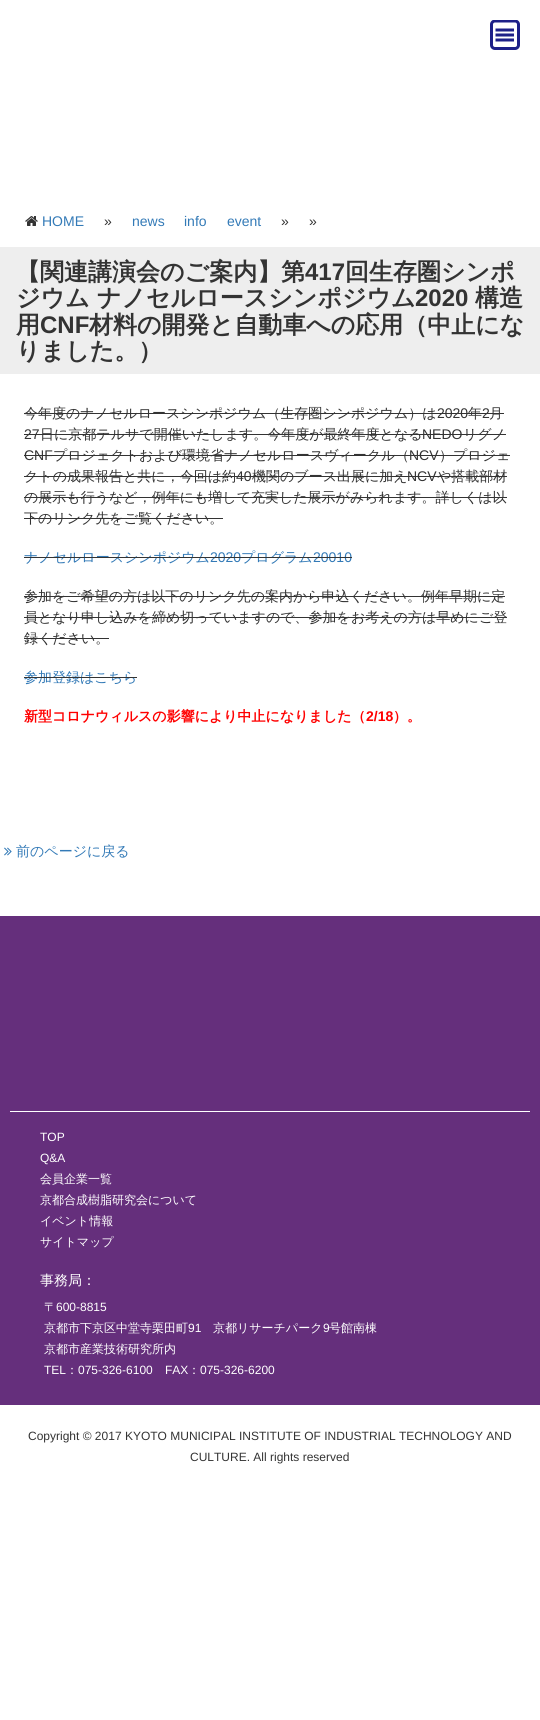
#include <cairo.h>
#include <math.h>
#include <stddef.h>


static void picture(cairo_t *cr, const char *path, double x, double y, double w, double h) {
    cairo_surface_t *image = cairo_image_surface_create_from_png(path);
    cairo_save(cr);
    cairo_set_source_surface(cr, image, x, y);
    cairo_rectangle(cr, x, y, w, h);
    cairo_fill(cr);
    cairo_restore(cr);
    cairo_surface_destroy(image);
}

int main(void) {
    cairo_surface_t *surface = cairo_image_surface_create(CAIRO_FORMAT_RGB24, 540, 1720);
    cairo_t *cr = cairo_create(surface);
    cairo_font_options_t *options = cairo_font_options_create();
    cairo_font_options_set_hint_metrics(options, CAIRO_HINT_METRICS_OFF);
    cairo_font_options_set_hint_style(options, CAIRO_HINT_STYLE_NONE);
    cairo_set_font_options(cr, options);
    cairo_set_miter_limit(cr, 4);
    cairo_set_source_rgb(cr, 1, 1, 1);
    cairo_paint(cr);
    picture(cr, "img1.png", 490, 20, 30, 30);
    picture(cr, "img2.png", 25, 216, 13, 10);
    cairo_select_font_face(cr, "Liberation Sans", CAIRO_FONT_SLANT_NORMAL, CAIRO_FONT_WEIGHT_NORMAL);
    cairo_set_font_size(cr, 14);
    cairo_set_source_rgb(cr, 0.2, 0.478, 0.718);
    cairo_move_to(cr, 42, 226);
    cairo_show_text(cr, "HOME");
    cairo_set_source_rgb(cr, 0.2, 0.2, 0.2);
    cairo_move_to(cr, 104, 226);
    cairo_show_text(cr, "»");
    cairo_set_source_rgb(cr, 0.2, 0.478, 0.718);
    cairo_move_to(cr, 132, 226);
    cairo_show_text(cr, "news");
    cairo_move_to(cr, 184, 226);
    cairo_show_text(cr, "info");
    cairo_move_to(cr, 227, 226);
    cairo_show_text(cr, "event");
    cairo_set_source_rgb(cr, 0.2, 0.2, 0.2);
    cairo_move_to(cr, 281, 226);
    cairo_show_text(cr, "»");
    cairo_move_to(cr, 309, 226);
    cairo_show_text(cr, "»");
    cairo_set_source_rgb(cr, 0.933, 0.933, 0.933);
    cairo_rectangle(cr, 0, 247, 540, 127);
    cairo_fill(cr);
    cairo_select_font_face(cr, "WenQuanYi Zen Hei", CAIRO_FONT_SLANT_NORMAL, CAIRO_FONT_WEIGHT_BOLD);
    cairo_set_font_size(cr, 24);
    cairo_set_source_rgb(cr, 0.2, 0.2, 0.2);
    cairo_move_to(cr, 16, 280);
    cairo_show_text(cr, "【関連講演会のご案内】第");
    cairo_select_font_face(cr, "Liberation Sans", CAIRO_FONT_SLANT_NORMAL, CAIRO_FONT_WEIGHT_BOLD);
    cairo_move_to(cr, 305, 280);
    cairo_show_text(cr, "417");
    cairo_select_font_face(cr, "WenQuanYi Zen Hei", CAIRO_FONT_SLANT_NORMAL, CAIRO_FONT_WEIGHT_BOLD);
    cairo_move_to(cr, 345, 280);
    cairo_show_text(cr, "回生存圏シンポ");
    cairo_move_to(cr, 16, 306);
    cairo_show_text(cr, "ジウム ナノセルロースシンポジウム");
    cairo_select_font_face(cr, "Liberation Sans", CAIRO_FONT_SLANT_NORMAL, CAIRO_FONT_WEIGHT_BOLD);
    cairo_move_to(cr, 415, 306);
    cairo_show_text(cr, "2020");
    cairo_select_font_face(cr, "WenQuanYi Zen Hei", CAIRO_FONT_SLANT_NORMAL, CAIRO_FONT_WEIGHT_BOLD);
    cairo_move_to(cr, 475, 306);
    cairo_show_text(cr, "構造");
    cairo_move_to(cr, 16, 333);
    cairo_show_text(cr, "用");
    cairo_select_font_face(cr, "Liberation Sans", CAIRO_FONT_SLANT_NORMAL, CAIRO_FONT_WEIGHT_BOLD);
    cairo_move_to(cr, 40, 333);
    cairo_show_text(cr, "CNF");
    cairo_select_font_face(cr, "WenQuanYi Zen Hei", CAIRO_FONT_SLANT_NORMAL, CAIRO_FONT_WEIGHT_BOLD);
    cairo_move_to(cr, 89, 333);
    cairo_show_text(cr, "材料の開発と自動車への応用（中止にな");
    cairo_move_to(cr, 16, 359);
    cairo_show_text(cr, "りました。）");
    cairo_select_font_face(cr, "WenQuanYi Zen Hei Medium", CAIRO_FONT_SLANT_NORMAL, CAIRO_FONT_WEIGHT_NORMAL);
    cairo_set_font_size(cr, 14);
    cairo_move_to(cr, 24, 418);
    cairo_show_text(cr, "今年度のナノセルロースシンポジウム（生存圏シンポジウム）は");
    cairo_rectangle(cr, 24, 413, 480, 1);
    cairo_fill(cr);
    cairo_select_font_face(cr, "Liberation Sans", CAIRO_FONT_SLANT_NORMAL, CAIRO_FONT_WEIGHT_NORMAL);
    cairo_move_to(cr, 437, 418);
    cairo_show_text(cr, "2020");
    cairo_select_font_face(cr, "WenQuanYi Zen Hei Medium", CAIRO_FONT_SLANT_NORMAL, CAIRO_FONT_WEIGHT_NORMAL);
    cairo_move_to(cr, 468, 418);
    cairo_show_text(cr, "年");
    cairo_select_font_face(cr, "Liberation Sans", CAIRO_FONT_SLANT_NORMAL, CAIRO_FONT_WEIGHT_NORMAL);
    cairo_move_to(cr, 482, 418);
    cairo_show_text(cr, "2");
    cairo_select_font_face(cr, "WenQuanYi Zen Hei Medium", CAIRO_FONT_SLANT_NORMAL, CAIRO_FONT_WEIGHT_NORMAL);
    cairo_move_to(cr, 489, 418);
    cairo_show_text(cr, "月");
    cairo_select_font_face(cr, "Liberation Sans", CAIRO_FONT_SLANT_NORMAL, CAIRO_FONT_WEIGHT_NORMAL);
    cairo_move_to(cr, 24, 439);
    cairo_show_text(cr, "27");
    cairo_select_font_face(cr, "WenQuanYi Zen Hei Medium", CAIRO_FONT_SLANT_NORMAL, CAIRO_FONT_WEIGHT_NORMAL);
    cairo_move_to(cr, 40, 439);
    cairo_show_text(cr, "日に京都テルサで開催いたします。今年度が最終年度となる");
    cairo_rectangle(cr, 24, 434, 482, 1);
    cairo_fill(cr);
    cairo_select_font_face(cr, "Liberation Sans", CAIRO_FONT_SLANT_NORMAL, CAIRO_FONT_WEIGHT_NORMAL);
    cairo_move_to(cr, 422, 439);
    cairo_show_text(cr, "NEDO");
    cairo_select_font_face(cr, "WenQuanYi Zen Hei Medium", CAIRO_FONT_SLANT_NORMAL, CAIRO_FONT_WEIGHT_NORMAL);
    cairo_move_to(cr, 463, 439);
    cairo_show_text(cr, "リグノ");
    cairo_select_font_face(cr, "Liberation Sans", CAIRO_FONT_SLANT_NORMAL, CAIRO_FONT_WEIGHT_NORMAL);
    cairo_move_to(cr, 24, 460);
    cairo_show_text(cr, "CNF");
    cairo_rectangle(cr, 24, 455, 158, 1);
    cairo_fill(cr);
    cairo_select_font_face(cr, "WenQuanYi Zen Hei Medium", CAIRO_FONT_SLANT_NORMAL, CAIRO_FONT_WEIGHT_NORMAL);
    cairo_move_to(cr, 53, 460);
    cairo_show_text(cr, "プロジェクトおよび");
    cairo_rectangle(cr, 182, 455, 328, 1);
    cairo_fill(cr);
    cairo_move_to(cr, 182, 460);
    cairo_show_text(cr, "環境省ナノセルロースヴィークル（");
    cairo_select_font_face(cr, "Liberation Sans", CAIRO_FONT_SLANT_NORMAL, CAIRO_FONT_WEIGHT_NORMAL);
    cairo_move_to(cr, 409, 460);
    cairo_show_text(cr, "NCV");
    cairo_select_font_face(cr, "WenQuanYi Zen Hei Medium", CAIRO_FONT_SLANT_NORMAL, CAIRO_FONT_WEIGHT_NORMAL);
    cairo_move_to(cr, 439, 460);
    cairo_show_text(cr, "）プロジェ");
    cairo_move_to(cr, 24, 481);
    cairo_show_text(cr, "クトの成果報告と共に，今回は約");
    cairo_rectangle(cr, 24, 476, 483, 1);
    cairo_fill(cr);
    cairo_select_font_face(cr, "Liberation Sans", CAIRO_FONT_SLANT_NORMAL, CAIRO_FONT_WEIGHT_NORMAL);
    cairo_move_to(cr, 236, 481);
    cairo_show_text(cr, "40");
    cairo_select_font_face(cr, "WenQuanYi Zen Hei Medium", CAIRO_FONT_SLANT_NORMAL, CAIRO_FONT_WEIGHT_NORMAL);
    cairo_move_to(cr, 252, 481);
    cairo_show_text(cr, "機関のブース出展に加え");
    cairo_select_font_face(cr, "Liberation Sans", CAIRO_FONT_SLANT_NORMAL, CAIRO_FONT_WEIGHT_NORMAL);
    cairo_move_to(cr, 407, 481);
    cairo_show_text(cr, "NCV");
    cairo_select_font_face(cr, "WenQuanYi Zen Hei Medium", CAIRO_FONT_SLANT_NORMAL, CAIRO_FONT_WEIGHT_NORMAL);
    cairo_move_to(cr, 437, 481);
    cairo_show_text(cr, "や搭載部材");
    cairo_move_to(cr, 24, 502);
    cairo_show_text(cr, "の展示も行うなど，例年にも増して充実した展示がみられます。詳しくは以");
    cairo_rectangle(cr, 24, 497, 483, 1);
    cairo_fill(cr);
    cairo_move_to(cr, 24, 523);
    cairo_show_text(cr, "下のリンク先をご覧ください。");
    cairo_rectangle(cr, 24, 518, 199, 1);
    cairo_fill(cr);
    cairo_set_source_rgb(cr, 0.2, 0.478, 0.718);
    cairo_move_to(cr, 24, 562);
    cairo_show_text(cr, "ナノセルロースシンポジウム");
    cairo_select_font_face(cr, "Liberation Sans", CAIRO_FONT_SLANT_NORMAL, CAIRO_FONT_WEIGHT_NORMAL);
    cairo_move_to(cr, 210, 562);
    cairo_show_text(cr, "2020");
    cairo_select_font_face(cr, "WenQuanYi Zen Hei Medium", CAIRO_FONT_SLANT_NORMAL, CAIRO_FONT_WEIGHT_NORMAL);
    cairo_move_to(cr, 241, 562);
    cairo_show_text(cr, "プログラム");
    cairo_select_font_face(cr, "Liberation Sans", CAIRO_FONT_SLANT_NORMAL, CAIRO_FONT_WEIGHT_NORMAL);
    cairo_move_to(cr, 313, 562);
    cairo_show_text(cr, "20010");
    cairo_set_source_rgb(cr, 0.2, 0.2, 0.2);
    cairo_rectangle(cr, 24, 557, 328, 1);
    cairo_fill(cr);
    cairo_select_font_face(cr, "WenQuanYi Zen Hei Medium", CAIRO_FONT_SLANT_NORMAL, CAIRO_FONT_WEIGHT_NORMAL);
    cairo_move_to(cr, 24, 601);
    cairo_show_text(cr, "参加をご希望の方は以下のリンク先の案内から申込ください。例年早期に定");
    cairo_rectangle(cr, 24, 596, 481, 1);
    cairo_fill(cr);
    cairo_move_to(cr, 24, 622);
    cairo_show_text(cr, "員となり申し込みを締め切っていますので、参加をお考えの方は早めにご登");
    cairo_rectangle(cr, 24, 617, 483, 1);
    cairo_fill(cr);
    cairo_move_to(cr, 24, 643);
    cairo_show_text(cr, "録ください。");
    cairo_rectangle(cr, 24, 638, 85, 1);
    cairo_fill(cr);
    cairo_set_source_rgb(cr, 0.2, 0.478, 0.718);
    cairo_move_to(cr, 24, 682);
    cairo_show_text(cr, "参加登録はこちら");
    cairo_set_source_rgb(cr, 0.2, 0.2, 0.2);
    cairo_rectangle(cr, 24, 677, 113, 1);
    cairo_fill(cr);
    cairo_select_font_face(cr, "WenQuanYi Zen Hei", CAIRO_FONT_SLANT_NORMAL, CAIRO_FONT_WEIGHT_BOLD);
    cairo_set_source_rgb(cr, 1, 0, 0);
    cairo_move_to(cr, 24, 721);
    cairo_show_text(cr, "新型コロナウィルスの影響により中止になりました（");
    cairo_select_font_face(cr, "Liberation Sans", CAIRO_FONT_SLANT_NORMAL, CAIRO_FONT_WEIGHT_BOLD);
    cairo_move_to(cr, 366, 721);
    cairo_show_text(cr, "2/18");
    cairo_select_font_face(cr, "WenQuanYi Zen Hei", CAIRO_FONT_SLANT_NORMAL, CAIRO_FONT_WEIGHT_BOLD);
    cairo_move_to(cr, 393, 721);
    cairo_show_text(cr, "）。");
    picture(cr, "img3.png", 4, 847, 8, 9);
    cairo_select_font_face(cr, "WenQuanYi Zen Hei Medium", CAIRO_FONT_SLANT_NORMAL, CAIRO_FONT_WEIGHT_NORMAL);
    cairo_set_source_rgb(cr, 0.2, 0.478, 0.718);
    cairo_move_to(cr, 16, 856);
    cairo_show_text(cr, "前のページに戻る");
    cairo_set_source_rgb(cr, 0.396, 0.184, 0.486);
    cairo_rectangle(cr, 0, 916, 540, 489);
    cairo_fill(cr);
    cairo_set_source_rgb(cr, 1, 1, 1);
    cairo_rectangle(cr, 10, 1111, 520, 1);
    cairo_fill(cr);
    cairo_select_font_face(cr, "Liberation Sans", CAIRO_FONT_SLANT_NORMAL, CAIRO_FONT_WEIGHT_NORMAL);
    cairo_set_font_size(cr, 12);
    cairo_move_to(cr, 40, 1141);
    cairo_show_text(cr, "TOP");
    cairo_move_to(cr, 40, 1162);
    cairo_show_text(cr, "Q&A");
    cairo_select_font_face(cr, "WenQuanYi Zen Hei Medium", CAIRO_FONT_SLANT_NORMAL, CAIRO_FONT_WEIGHT_NORMAL);
    cairo_move_to(cr, 40, 1183);
    cairo_show_text(cr, "会員企業一覧");
    cairo_move_to(cr, 40, 1204);
    cairo_show_text(cr, "京都合成樹脂研究会について");
    cairo_move_to(cr, 40, 1225);
    cairo_show_text(cr, "イベント情報");
    cairo_move_to(cr, 40, 1246);
    cairo_show_text(cr, "サイトマップ");
    cairo_set_font_size(cr, 14);
    cairo_move_to(cr, 40, 1285);
    cairo_show_text(cr, "事務局：");
    cairo_set_font_size(cr, 12);
    cairo_move_to(cr, 44, 1311);
    cairo_show_text(cr, "〒");
    cairo_select_font_face(cr, "Liberation Sans", CAIRO_FONT_SLANT_NORMAL, CAIRO_FONT_WEIGHT_NORMAL);
    cairo_move_to(cr, 56, 1311);
    cairo_show_text(cr, "600-8815");
    cairo_select_font_face(cr, "WenQuanYi Zen Hei Medium", CAIRO_FONT_SLANT_NORMAL, CAIRO_FONT_WEIGHT_NORMAL);
    cairo_move_to(cr, 44, 1332);
    cairo_show_text(cr, "京都市下京区中堂寺栗田町");
    cairo_select_font_face(cr, "Liberation Sans", CAIRO_FONT_SLANT_NORMAL, CAIRO_FONT_WEIGHT_NORMAL);
    cairo_move_to(cr, 188, 1332);
    cairo_show_text(cr, "91");
    cairo_select_font_face(cr, "WenQuanYi Zen Hei Medium", CAIRO_FONT_SLANT_NORMAL, CAIRO_FONT_WEIGHT_NORMAL);
    cairo_move_to(cr, 213, 1332);
    cairo_show_text(cr, "京都リサーチパーク");
    cairo_select_font_face(cr, "Liberation Sans", CAIRO_FONT_SLANT_NORMAL, CAIRO_FONT_WEIGHT_NORMAL);
    cairo_move_to(cr, 323, 1332);
    cairo_show_text(cr, "9");
    cairo_select_font_face(cr, "WenQuanYi Zen Hei Medium", CAIRO_FONT_SLANT_NORMAL, CAIRO_FONT_WEIGHT_NORMAL);
    cairo_move_to(cr, 329, 1332);
    cairo_show_text(cr, "号館南棟");
    cairo_move_to(cr, 44, 1353);
    cairo_show_text(cr, "京都市産業技術研究所内");
    cairo_select_font_face(cr, "Liberation Sans", CAIRO_FONT_SLANT_NORMAL, CAIRO_FONT_WEIGHT_NORMAL);
    cairo_move_to(cr, 44, 1374);
    cairo_show_text(cr, "TEL");
    cairo_select_font_face(cr, "WenQuanYi Zen Hei Medium", CAIRO_FONT_SLANT_NORMAL, CAIRO_FONT_WEIGHT_NORMAL);
    cairo_move_to(cr, 66, 1374);
    cairo_show_text(cr, "：");
    cairo_select_font_face(cr, "Liberation Sans", CAIRO_FONT_SLANT_NORMAL, CAIRO_FONT_WEIGHT_NORMAL);
    cairo_move_to(cr, 78, 1374);
    cairo_show_text(cr, "075-326-6100");
    cairo_move_to(cr, 165, 1374);
    cairo_show_text(cr, "FAX");
    cairo_select_font_face(cr, "WenQuanYi Zen Hei Medium", CAIRO_FONT_SLANT_NORMAL, CAIRO_FONT_WEIGHT_NORMAL);
    cairo_move_to(cr, 188, 1374);
    cairo_show_text(cr, "：");
    cairo_select_font_face(cr, "Liberation Sans", CAIRO_FONT_SLANT_NORMAL, CAIRO_FONT_WEIGHT_NORMAL);
    cairo_move_to(cr, 200, 1374);
    cairo_show_text(cr, "075-326-6200");
    cairo_set_source_rgb(cr, 0.2, 0.2, 0.2);
    cairo_move_to(cr, 28, 1440);
    cairo_show_text(cr, "Copyright © 2017 KYOTO MUNICIPAL INSTITUTE OF INDUSTRIAL TECHNOLOGY AND");
    cairo_move_to(cr, 190, 1461);
    cairo_show_text(cr, "CULTURE. All rights reserved");
    cairo_surface_write_to_png(surface, "page.png");
    cairo_font_options_destroy(options);
    cairo_destroy(cr);
    cairo_surface_destroy(surface);
    return 0;
}
